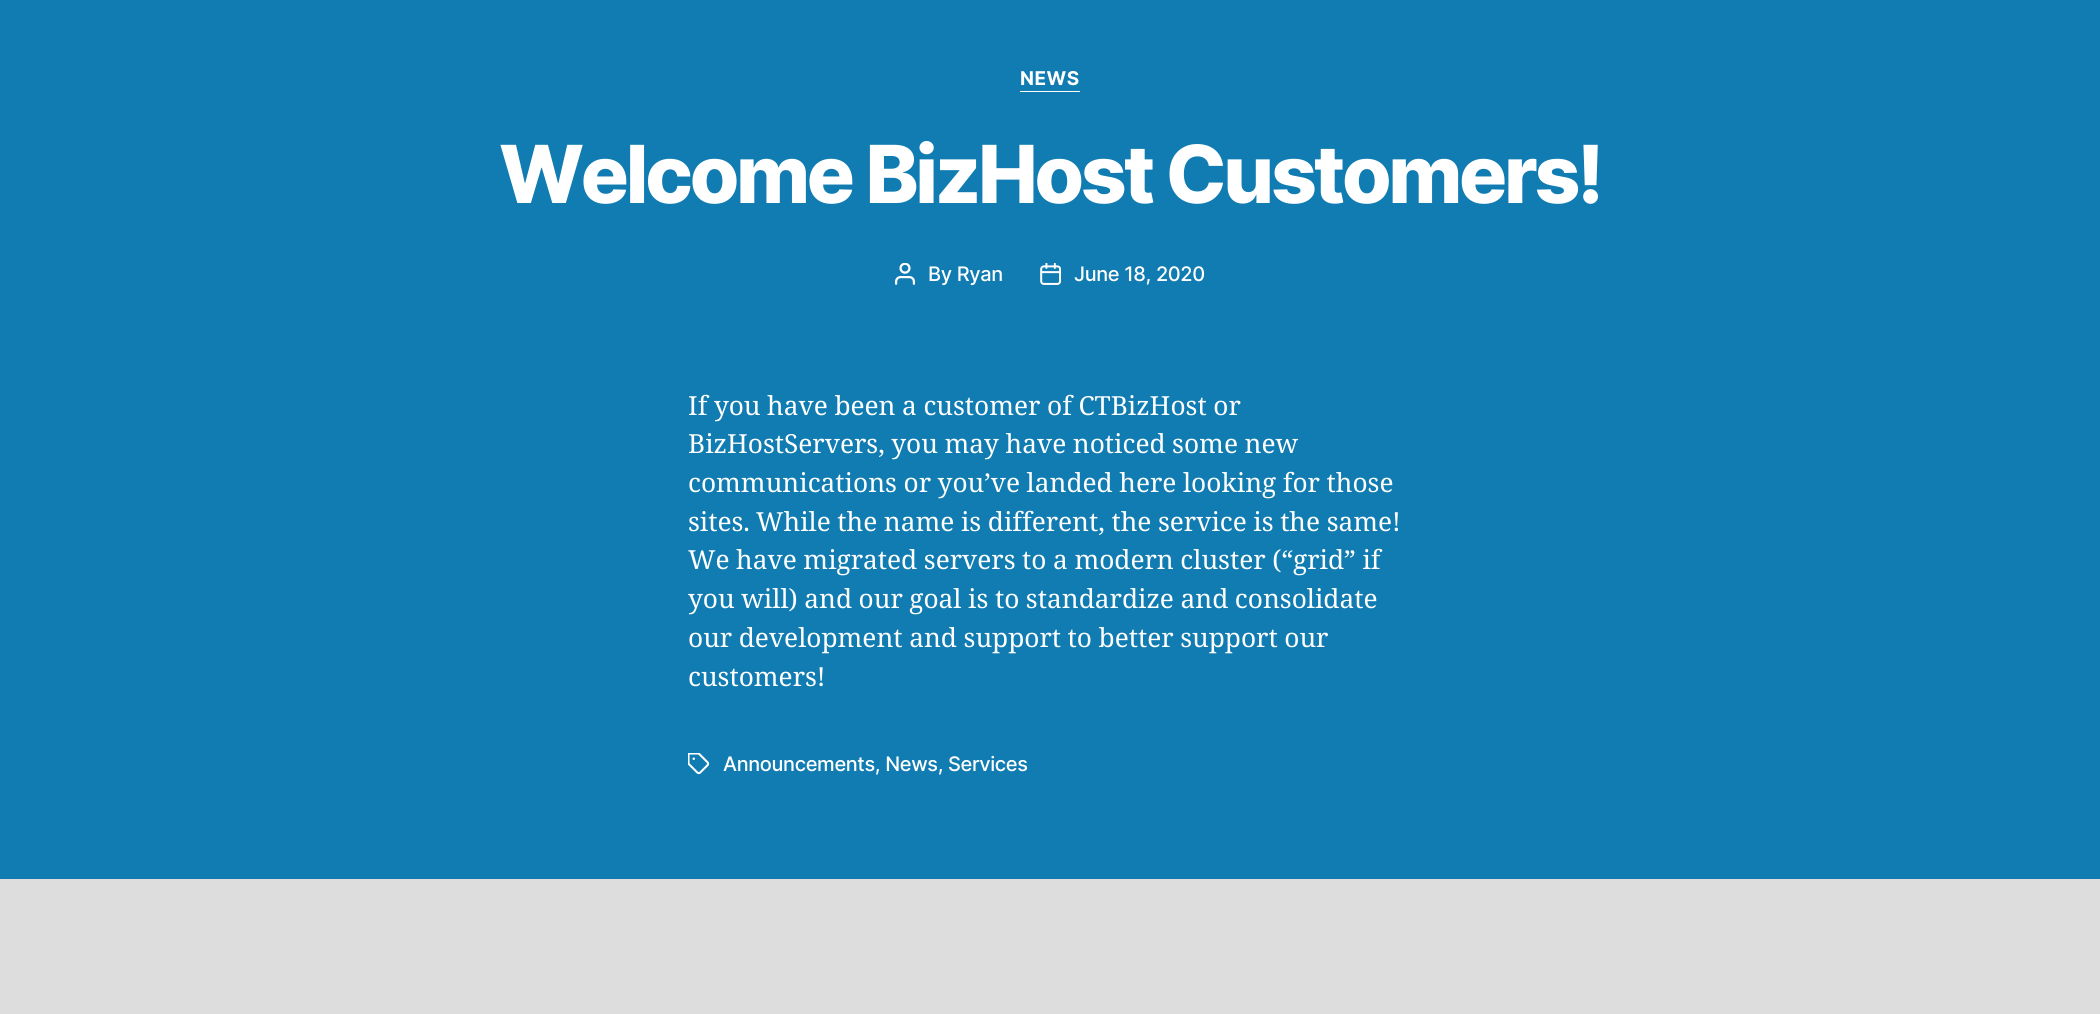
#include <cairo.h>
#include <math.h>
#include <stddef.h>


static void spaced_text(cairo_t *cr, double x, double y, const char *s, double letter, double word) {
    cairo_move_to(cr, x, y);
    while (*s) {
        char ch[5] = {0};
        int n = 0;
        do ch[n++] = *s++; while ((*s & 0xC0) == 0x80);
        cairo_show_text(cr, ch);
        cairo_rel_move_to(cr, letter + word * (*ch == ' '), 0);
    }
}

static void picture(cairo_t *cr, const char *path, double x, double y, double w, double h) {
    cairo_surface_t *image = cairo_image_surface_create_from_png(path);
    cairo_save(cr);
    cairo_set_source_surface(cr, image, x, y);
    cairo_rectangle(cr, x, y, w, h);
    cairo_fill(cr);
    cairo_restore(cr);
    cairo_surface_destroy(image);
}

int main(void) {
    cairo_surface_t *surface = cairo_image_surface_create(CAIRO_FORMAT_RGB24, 2100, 1014);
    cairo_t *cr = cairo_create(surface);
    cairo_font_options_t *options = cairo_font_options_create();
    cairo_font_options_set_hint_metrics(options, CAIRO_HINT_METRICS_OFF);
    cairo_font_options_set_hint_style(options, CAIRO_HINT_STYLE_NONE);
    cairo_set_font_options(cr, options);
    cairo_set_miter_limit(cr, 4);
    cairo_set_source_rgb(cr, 0.067, 0.486, 0.698);
    cairo_paint(cr);
    cairo_set_source_rgb(cr, 1, 1, 1);
    cairo_rectangle(cr, 1020, 91, 60, 1);
    cairo_fill(cr);
    cairo_select_font_face(cr, "Inter", CAIRO_FONT_SLANT_NORMAL, CAIRO_FONT_WEIGHT_BOLD);
    cairo_set_font_size(cr, 19);
    spaced_text(cr, 1020, 85, "NEWS", 0.5, 0);
    cairo_select_font_face(cr, "Inter ExtraBold", CAIRO_FONT_SLANT_NORMAL, CAIRO_FONT_WEIGHT_NORMAL);
    cairo_set_font_size(cr, 80);
    spaced_text(cr, 499, 203, "Welcome BizHost Customers!", -3.3, 0);
    picture(cr, "img1.png", 895, 263, 20, 22);
    cairo_select_font_face(cr, "Inter Medium", CAIRO_FONT_SLANT_NORMAL, CAIRO_FONT_WEIGHT_NORMAL);
    cairo_set_font_size(cr, 20);
    spaced_text(cr, 928, 281, "By Ryan", -0.35, 0);
    picture(cr, "img2.png", 1040, 263, 21, 22);
    spaced_text(cr, 1074, 281, "June 18, 2020", -0.35, 0);
    cairo_select_font_face(cr, "Noto Serif", CAIRO_FONT_SLANT_NORMAL, CAIRO_FONT_WEIGHT_NORMAL);
    cairo_set_font_size(cr, 26.25);
    spaced_text(cr, 688, 415, "If you have been a customer of CTBizHost or", 0, -0.25);
    spaced_text(cr, 688, 453, "BizHostServers, you may have noticed some new", 0, -0.25);
    spaced_text(cr, 688, 492, "communications or you’ve landed here looking for those", 0, -0.25);
    cairo_move_to(cr, 688, 531);
    cairo_show_text(cr, "sites.");
    spaced_text(cr, 756, 531, "While the name is different, the service is the same!", 0, -0.25);
    spaced_text(cr, 688, 569, "We have migrated servers to a modern cluster (“grid” if", 0, -0.25);
    spaced_text(cr, 688, 608, "you will) and our goal is to standardize and consolidate", 0, -0.25);
    spaced_text(cr, 688, 647, "our development and support to better support our", 0, -0.25);
    cairo_move_to(cr, 688, 686);
    cairo_show_text(cr, "customers!");
    picture(cr, "img3.png", 688, 753, 22, 22);
    cairo_select_font_face(cr, "Inter Medium", CAIRO_FONT_SLANT_NORMAL, CAIRO_FONT_WEIGHT_NORMAL);
    cairo_set_font_size(cr, 20);
    spaced_text(cr, 723, 771, "Announcements, News, Services", -0.35, 0);
    cairo_set_source_rgb(cr, 0.867, 0.867, 0.867);
    cairo_rectangle(cr, 0, 879, 2100, 135);
    cairo_fill(cr);
    cairo_surface_write_to_png(surface, "page.png");
    cairo_font_options_destroy(options);
    cairo_destroy(cr);
    cairo_surface_destroy(surface);
    return 0;
}
